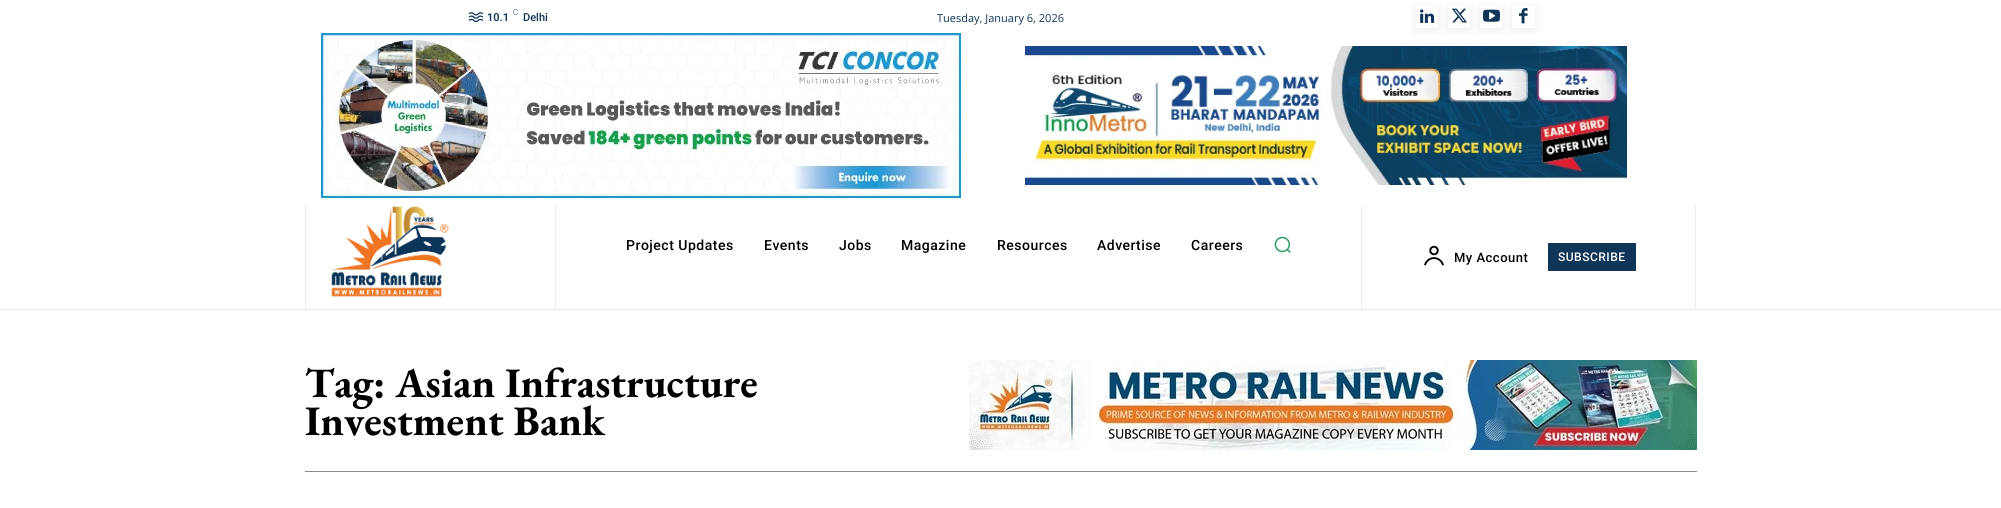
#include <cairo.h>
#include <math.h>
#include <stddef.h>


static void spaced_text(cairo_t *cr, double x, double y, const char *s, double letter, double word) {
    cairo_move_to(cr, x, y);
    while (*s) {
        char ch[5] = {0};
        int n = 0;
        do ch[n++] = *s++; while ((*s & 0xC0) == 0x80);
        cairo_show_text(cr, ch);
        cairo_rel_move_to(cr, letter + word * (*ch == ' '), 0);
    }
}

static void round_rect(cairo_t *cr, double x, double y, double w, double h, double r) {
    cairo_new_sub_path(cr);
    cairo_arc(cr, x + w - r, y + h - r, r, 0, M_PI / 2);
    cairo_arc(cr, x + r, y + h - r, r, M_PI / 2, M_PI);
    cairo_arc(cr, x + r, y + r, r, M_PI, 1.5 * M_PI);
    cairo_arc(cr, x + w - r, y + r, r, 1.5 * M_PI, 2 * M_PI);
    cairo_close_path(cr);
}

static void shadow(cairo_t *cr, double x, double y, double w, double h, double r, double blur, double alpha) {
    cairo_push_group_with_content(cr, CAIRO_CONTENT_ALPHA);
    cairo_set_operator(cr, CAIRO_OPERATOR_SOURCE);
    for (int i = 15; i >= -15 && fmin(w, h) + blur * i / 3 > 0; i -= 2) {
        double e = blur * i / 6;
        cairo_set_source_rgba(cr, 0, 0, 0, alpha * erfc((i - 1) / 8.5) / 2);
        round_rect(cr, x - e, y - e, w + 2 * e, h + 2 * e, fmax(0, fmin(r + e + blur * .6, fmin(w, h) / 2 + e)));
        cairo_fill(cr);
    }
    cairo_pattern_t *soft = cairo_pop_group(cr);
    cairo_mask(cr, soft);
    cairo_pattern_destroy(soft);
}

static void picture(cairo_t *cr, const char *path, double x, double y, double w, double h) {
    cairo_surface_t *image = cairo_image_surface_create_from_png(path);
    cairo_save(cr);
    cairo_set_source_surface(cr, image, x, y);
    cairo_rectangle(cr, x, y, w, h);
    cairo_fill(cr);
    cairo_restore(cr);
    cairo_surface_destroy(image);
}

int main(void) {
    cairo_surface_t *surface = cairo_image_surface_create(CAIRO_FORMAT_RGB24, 2001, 508);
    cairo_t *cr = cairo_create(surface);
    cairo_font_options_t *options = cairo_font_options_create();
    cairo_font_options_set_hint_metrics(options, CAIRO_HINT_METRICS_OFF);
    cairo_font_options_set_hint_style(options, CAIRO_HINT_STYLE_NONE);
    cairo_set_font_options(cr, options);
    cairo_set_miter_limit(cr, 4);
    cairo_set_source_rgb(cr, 1, 1, 1);
    cairo_paint(cr);
    cairo_set_source_rgb(cr, 0.918, 0.918, 0.918);
    cairo_rectangle(cr, 0, 309, 2001, 1);
    cairo_fill(cr);
    picture(cr, "img1.png", 468, 12, 16, 11);
    cairo_select_font_face(cr, "Roboto SemiBold", CAIRO_FONT_SLANT_NORMAL, CAIRO_FONT_WEIGHT_NORMAL);
    cairo_set_font_size(cr, 11);
    cairo_set_source_rgb(cr, 0.059, 0.208, 0.345);
    cairo_move_to(cr, 487, 21);
    cairo_show_text(cr, "10.1");
    cairo_select_font_face(cr, "Roboto Light", CAIRO_FONT_SLANT_NORMAL, CAIRO_FONT_WEIGHT_NORMAL);
    cairo_set_font_size(cr, 8);
    cairo_move_to(cr, 513, 15);
    cairo_show_text(cr, "C");
    cairo_select_font_face(cr, "Roboto Medium", CAIRO_FONT_SLANT_NORMAL, CAIRO_FONT_WEIGHT_NORMAL);
    cairo_set_font_size(cr, 11);
    cairo_move_to(cr, 523, 21);
    cairo_show_text(cr, "Delhi");
    cairo_select_font_face(cr, "Open Sans", CAIRO_FONT_SLANT_NORMAL, CAIRO_FONT_WEIGHT_NORMAL);
    cairo_move_to(cr, 937, 22);
    cairo_show_text(cr, "Tuesday, January 6, 2026");
    cairo_save(cr);
    cairo_set_fill_rule(cr, CAIRO_FILL_RULE_EVEN_ODD);
    cairo_new_path(cr);
    cairo_move_to(cr, 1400, 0);
    cairo_line_to(cr, 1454, 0);
    cairo_line_to(cr, 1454, 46);
    cairo_line_to(cr, 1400, 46);
    cairo_close_path(cr);
    cairo_move_to(cr, 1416, 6);
    cairo_line_to(cr, 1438, 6);
    cairo_line_to(cr, 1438, 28);
    cairo_line_to(cr, 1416, 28);
    cairo_close_path(cr);
    cairo_clip(cr);
    cairo_set_source_rgb(cr, 0, 0, 0);
    shadow(cr, 1416, 8, 22, 22, 0, 5, 0.08);
    cairo_restore(cr);
    picture(cr, "img2.png", 1420, 9, 15, 14);
    cairo_save(cr);
    cairo_set_fill_rule(cr, CAIRO_FILL_RULE_EVEN_ODD);
    cairo_new_path(cr);
    cairo_move_to(cr, 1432, 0);
    cairo_line_to(cr, 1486, 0);
    cairo_line_to(cr, 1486, 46);
    cairo_line_to(cr, 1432, 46);
    cairo_close_path(cr);
    cairo_move_to(cr, 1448, 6);
    cairo_line_to(cr, 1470, 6);
    cairo_line_to(cr, 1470, 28);
    cairo_line_to(cr, 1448, 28);
    cairo_close_path(cr);
    cairo_clip(cr);
    cairo_set_source_rgb(cr, 0, 0, 0);
    shadow(cr, 1448, 8, 22, 22, 0, 5, 0.08);
    cairo_restore(cr);
    picture(cr, "img3.png", 1452, 8, 15, 15);
    cairo_save(cr);
    cairo_set_fill_rule(cr, CAIRO_FILL_RULE_EVEN_ODD);
    cairo_new_path(cr);
    cairo_move_to(cr, 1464, 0);
    cairo_line_to(cr, 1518, 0);
    cairo_line_to(cr, 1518, 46);
    cairo_line_to(cr, 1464, 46);
    cairo_close_path(cr);
    cairo_move_to(cr, 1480, 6);
    cairo_line_to(cr, 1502, 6);
    cairo_line_to(cr, 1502, 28);
    cairo_line_to(cr, 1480, 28);
    cairo_close_path(cr);
    cairo_clip(cr);
    cairo_set_source_rgb(cr, 0, 0, 0);
    shadow(cr, 1480, 8, 22, 22, 0, 5, 0.08);
    cairo_restore(cr);
    picture(cr, "img4.png", 1483, 9, 17, 13);
    cairo_save(cr);
    cairo_set_fill_rule(cr, CAIRO_FILL_RULE_EVEN_ODD);
    cairo_new_path(cr);
    cairo_move_to(cr, 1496, 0);
    cairo_line_to(cr, 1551, 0);
    cairo_line_to(cr, 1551, 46);
    cairo_line_to(cr, 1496, 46);
    cairo_close_path(cr);
    cairo_move_to(cr, 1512, 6);
    cairo_line_to(cr, 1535, 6);
    cairo_line_to(cr, 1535, 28);
    cairo_line_to(cr, 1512, 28);
    cairo_close_path(cr);
    cairo_clip(cr);
    cairo_set_source_rgb(cr, 0, 0, 0);
    shadow(cr, 1512, 8, 23, 22, 0, 5, 0.08);
    cairo_restore(cr);
    picture(cr, "img5.png", 1519, 8, 9, 16);
    picture(cr, "img6.png", 321, 33, 640, 165);
    picture(cr, "img7.png", 1025, 46, 602, 139);
    cairo_set_source_rgb(cr, 0.918, 0.918, 0.918);
    cairo_rectangle(cr, 305, 204, 1, 105);
    cairo_fill(cr);
    picture(cr, "img8.png", 331, 206, 118, 91);
    cairo_rectangle(cr, 1361, 205, 1, 104);
    cairo_fill(cr);
    cairo_rectangle(cr, 555, 205, 1, 104);
    cairo_fill(cr);
    cairo_select_font_face(cr, "Roboto Medium", CAIRO_FONT_SLANT_NORMAL, CAIRO_FONT_WEIGHT_NORMAL);
    cairo_set_font_size(cr, 14);
    cairo_set_source_rgb(cr, 0, 0, 0);
    spaced_text(cr, 626, 250, "Project Updates", 0.5, 0);
    spaced_text(cr, 764, 250, "Events", 0.5, 0);
    spaced_text(cr, 839, 250, "Jobs", 0.5, 0);
    spaced_text(cr, 901, 250, "Magazine", 0.5, 0);
    spaced_text(cr, 997, 250, "Resources", 0.5, 0);
    spaced_text(cr, 1097, 250, "Advertise", 0.5, 0);
    spaced_text(cr, 1191, 250, "Careers", 0.5, 0);
    picture(cr, "img9.png", 1274, 236, 17, 17);
    cairo_set_source_rgb(cr, 0.918, 0.918, 0.918);
    cairo_rectangle(cr, 1695, 205, 1, 104);
    cairo_fill(cr);
    picture(cr, "img10.png", 1424, 245, 20, 21);
    cairo_set_font_size(cr, 13);
    cairo_set_source_rgb(cr, 0, 0, 0);
    spaced_text(cr, 1454, 262, "My Account", 0.5, 0);
    cairo_set_source_rgb(cr, 0.059, 0.208, 0.345);
    cairo_rectangle(cr, 1548, 243, 88, 28);
    cairo_fill(cr);
    cairo_set_font_size(cr, 12);
    cairo_set_source_rgb(cr, 1, 1, 1);
    spaced_text(cr, 1558, 261, "SUBSCRIBE", 0.5, 0);
    cairo_set_source_rgb(cr, 0.533, 0.533, 0.533);
    cairo_rectangle(cr, 305, 471, 1392, 1);
    cairo_fill(cr);
    cairo_select_font_face(cr, "EB Garamond", CAIRO_FONT_SLANT_NORMAL, CAIRO_FONT_WEIGHT_BOLD);
    cairo_set_font_size(cr, 42);
    cairo_set_source_rgb(cr, 0, 0, 0);
    cairo_move_to(cr, 305, 397);
    cairo_show_text(cr, "Tag: Asian Infrastructure");
    cairo_move_to(cr, 305, 435);
    cairo_show_text(cr, "Investment Bank");
    picture(cr, "img11.png", 969, 360, 728, 90);
    cairo_surface_write_to_png(surface, "page.png");
    cairo_font_options_destroy(options);
    cairo_destroy(cr);
    cairo_surface_destroy(surface);
    return 0;
}
